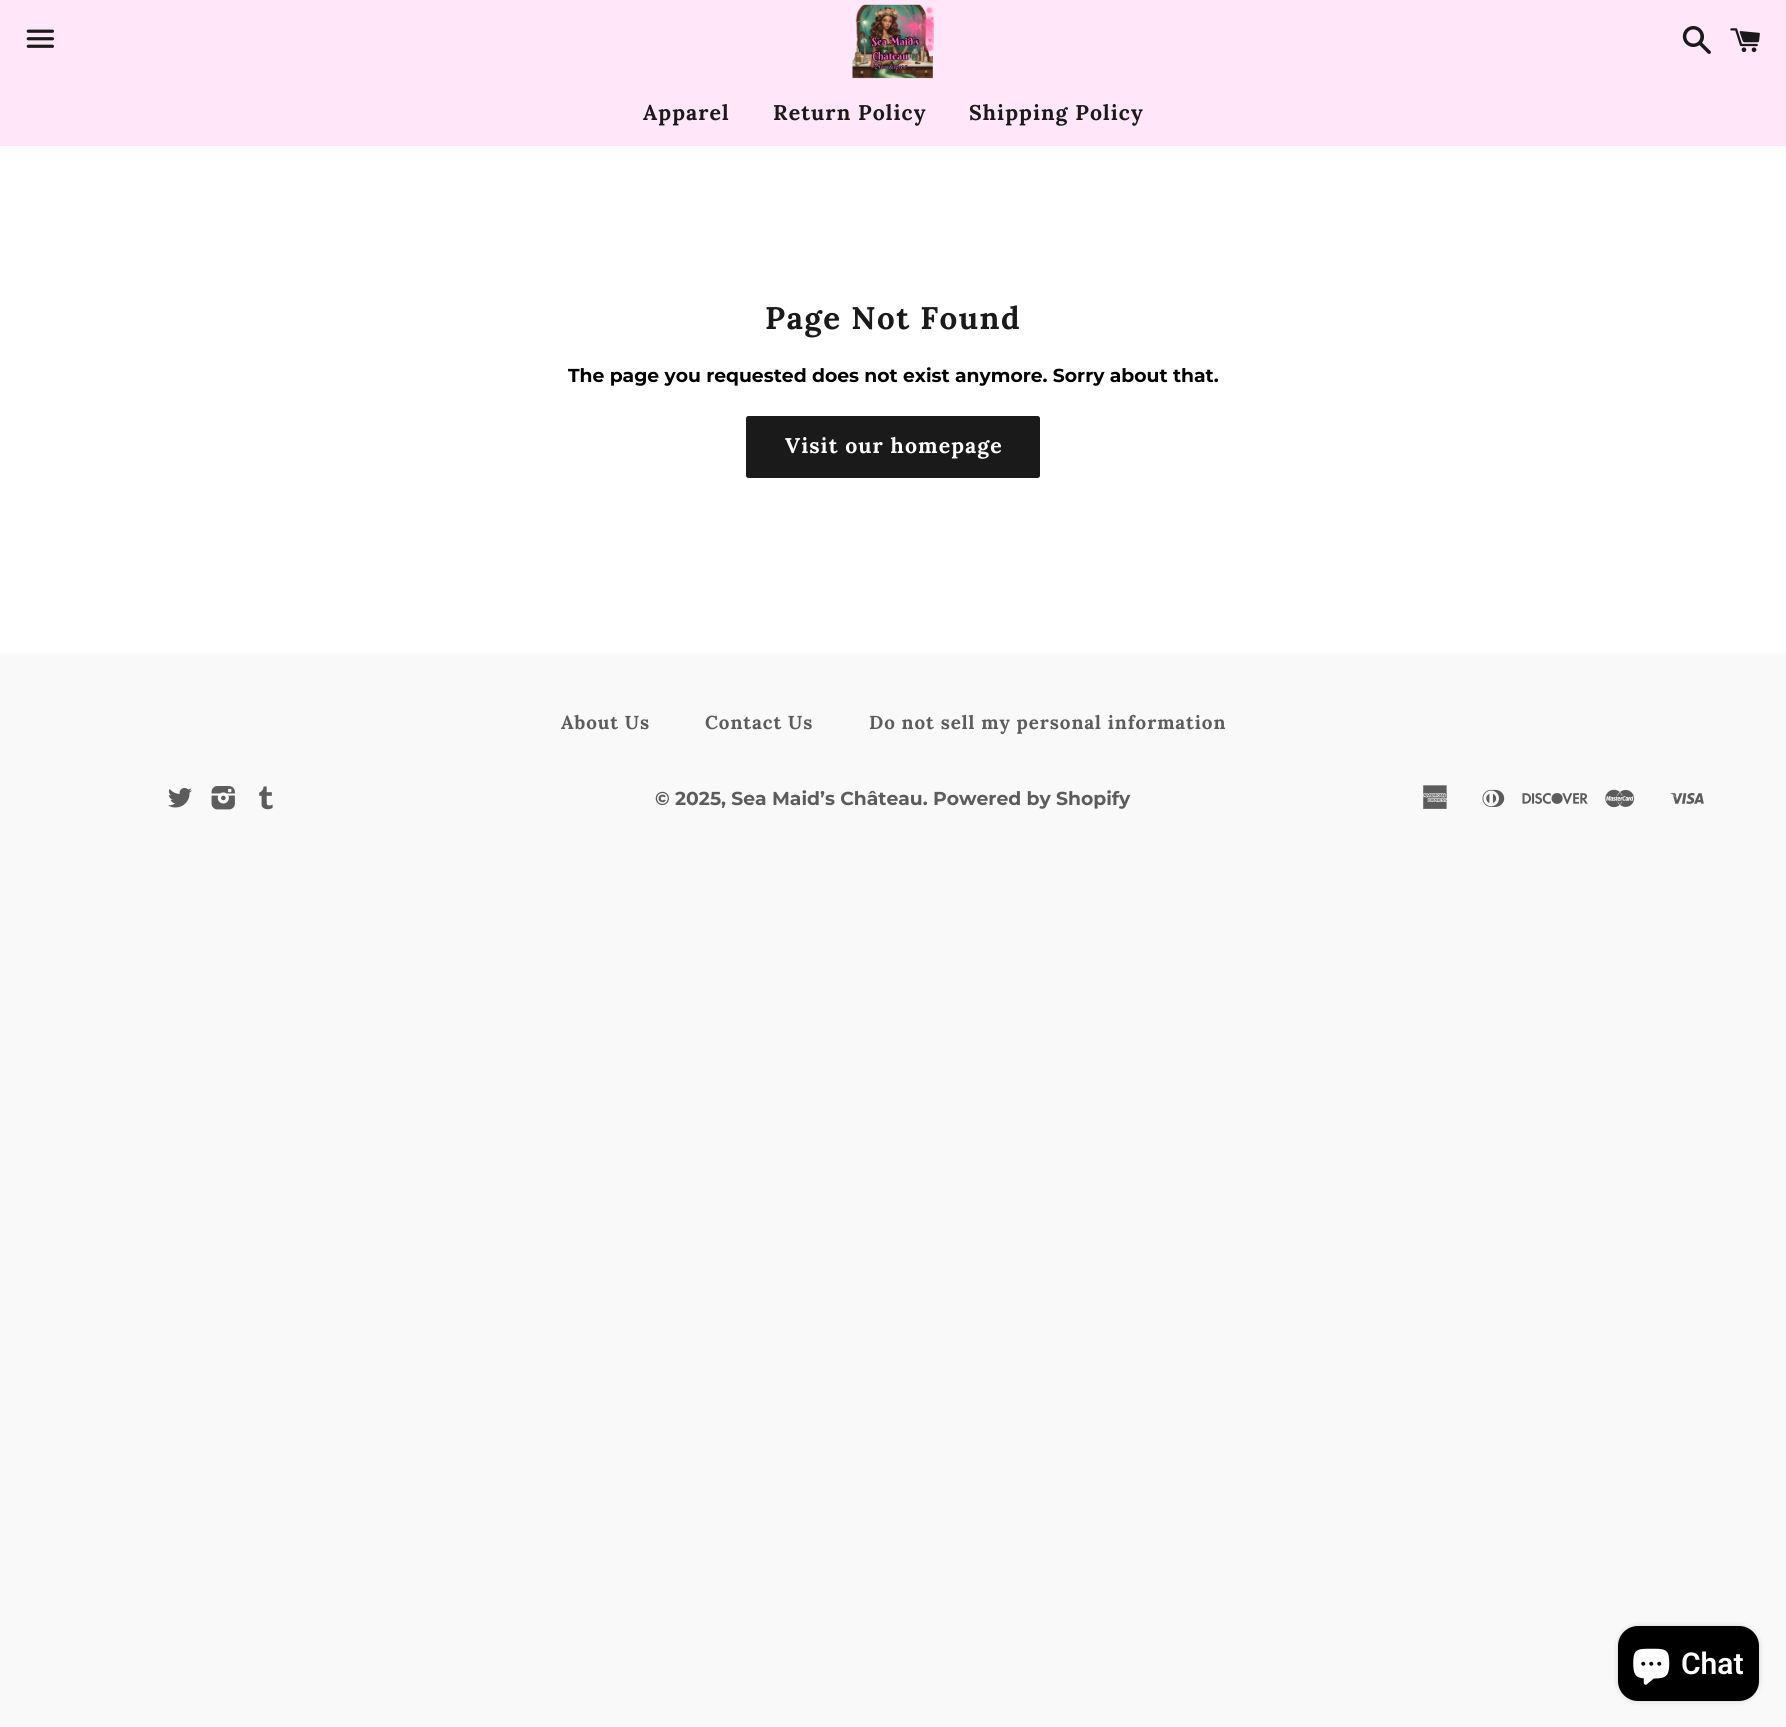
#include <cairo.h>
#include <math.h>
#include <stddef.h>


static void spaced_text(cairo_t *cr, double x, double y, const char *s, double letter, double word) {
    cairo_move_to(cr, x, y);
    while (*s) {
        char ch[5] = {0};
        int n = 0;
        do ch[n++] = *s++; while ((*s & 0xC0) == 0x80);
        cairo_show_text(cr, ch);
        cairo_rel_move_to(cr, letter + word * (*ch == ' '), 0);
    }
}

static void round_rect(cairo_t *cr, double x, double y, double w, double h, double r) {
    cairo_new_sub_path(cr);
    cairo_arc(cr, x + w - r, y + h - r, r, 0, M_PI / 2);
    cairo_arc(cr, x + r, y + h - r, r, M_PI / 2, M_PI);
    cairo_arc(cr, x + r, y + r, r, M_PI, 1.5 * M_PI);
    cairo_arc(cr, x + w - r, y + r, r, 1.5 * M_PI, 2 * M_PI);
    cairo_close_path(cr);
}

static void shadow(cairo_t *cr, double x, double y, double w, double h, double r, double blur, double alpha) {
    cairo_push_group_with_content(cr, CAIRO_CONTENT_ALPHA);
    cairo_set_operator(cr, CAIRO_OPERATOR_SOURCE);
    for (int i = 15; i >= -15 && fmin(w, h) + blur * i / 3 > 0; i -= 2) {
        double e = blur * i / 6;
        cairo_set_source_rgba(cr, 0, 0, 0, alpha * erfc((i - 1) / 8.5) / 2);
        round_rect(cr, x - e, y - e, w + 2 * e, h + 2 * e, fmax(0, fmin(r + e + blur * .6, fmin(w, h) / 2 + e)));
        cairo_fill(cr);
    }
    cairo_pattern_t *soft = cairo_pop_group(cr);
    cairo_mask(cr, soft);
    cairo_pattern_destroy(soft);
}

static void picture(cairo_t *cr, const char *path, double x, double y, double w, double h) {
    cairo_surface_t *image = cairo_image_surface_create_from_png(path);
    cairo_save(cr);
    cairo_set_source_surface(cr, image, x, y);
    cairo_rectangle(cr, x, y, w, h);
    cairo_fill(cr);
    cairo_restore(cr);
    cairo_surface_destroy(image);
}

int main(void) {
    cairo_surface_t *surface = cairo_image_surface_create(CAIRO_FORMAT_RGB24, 1786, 1727);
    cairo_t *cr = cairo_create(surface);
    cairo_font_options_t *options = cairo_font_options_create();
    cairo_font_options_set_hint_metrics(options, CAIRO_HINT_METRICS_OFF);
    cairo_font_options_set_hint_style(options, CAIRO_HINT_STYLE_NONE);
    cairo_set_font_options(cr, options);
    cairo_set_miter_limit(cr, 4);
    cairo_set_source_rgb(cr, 0.976, 0.976, 0.976);
    cairo_paint(cr);
    cairo_set_source_rgb(cr, 1, 1, 1);
    cairo_rectangle(cr, 0, 146, 1786, 507);
    cairo_fill(cr);
    cairo_set_source_rgb(cr, 1, 0.902, 0.973);
    cairo_rectangle(cr, 0, 0, 1786, 146);
    cairo_fill(cr);
    picture(cr, "img1.png", 26, 29, 28, 19);
    picture(cr, "img2.png", 852, 4, 82, 75);
    picture(cr, "img3.png", 1682, 25, 29, 29);
    picture(cr, "img4.png", 1730, 28, 30, 24);
    cairo_select_font_face(cr, "Lora", CAIRO_FONT_SLANT_NORMAL, CAIRO_FONT_WEIGHT_BOLD);
    cairo_set_font_size(cr, 21.25);
    cairo_set_source_rgb(cr, 0.102, 0.102, 0.102);
    spaced_text(cr, 643, 120, "Apparel", 1.1, 0);
    spaced_text(cr, 773, 120, "Return Policy", 1.1, 0);
    spaced_text(cr, 969, 120, "Shipping Policy", 1.1, 0);
    cairo_set_font_size(cr, 31.25);
    spaced_text(cr, 765, 329, "Page Not Found", 1.5, 0);
    cairo_select_font_face(cr, "Montserrat Thin", CAIRO_FONT_SLANT_NORMAL, CAIRO_FONT_WEIGHT_NORMAL);
    cairo_set_font_size(cr, 18.75);
    cairo_set_source_rgb(cr, 0, 0, 0);
    cairo_move_to(cr, 568, 382);
    cairo_show_text(cr, "The page you requested does not exist anymore. Sorry about that.");
    cairo_set_source_rgb(cr, 0.102, 0.102, 0.102);
    round_rect(cr, 746, 416, 294, 62, 2.5);
    cairo_fill(cr);
    cairo_select_font_face(cr, "Lora", CAIRO_FONT_SLANT_NORMAL, CAIRO_FONT_WEIGHT_BOLD);
    cairo_set_font_size(cr, 21.25);
    cairo_set_source_rgb(cr, 1, 1, 1);
    spaced_text(cr, 785, 453, "Visit our homepage", 1.1, 0);
    cairo_set_font_size(cr, 18.75);
    cairo_set_source_rgb(cr, 0.361, 0.361, 0.361);
    spaced_text(cr, 561, 729, "About Us", 0.95, 0);
    spaced_text(cr, 705, 729, "Contact Us", 0.95, 0);
    spaced_text(cr, 869, 729, "Do not sell my personal information", 0.95, 0);
    picture(cr, "img5.png", 168, 787, 24, 21);
    picture(cr, "img6.png", 211, 786, 24, 24);
    picture(cr, "img7.png", 259, 786, 14, 24);
    cairo_select_font_face(cr, "Montserrat Thin", CAIRO_FONT_SLANT_NORMAL, CAIRO_FONT_WEIGHT_NORMAL);
    cairo_move_to(cr, 655, 805);
    cairo_show_text(cr, "© 2025, Sea Maid’s Château. Powered by Shopify");
    picture(cr, "img8.png", 1423, 785, 24, 24);
    picture(cr, "img9.png", 1482, 789, 23, 18);
    picture(cr, "img10.png", 1522, 793, 66, 11);
    picture(cr, "img11.png", 1605, 789, 30, 19);
    picture(cr, "img12.png", 1670, 793, 34, 11);
    cairo_set_source_rgb(cr, 0, 0, 0);
    shadow(cr, 1618, 1626, 141, 75, 20, 3, 0.15);
    cairo_set_source_rgb(cr, 0, 0, 0);
    round_rect(cr, 1618, 1626, 141, 75, 20);
    cairo_fill(cr);
    picture(cr, "img13.png", 1633, 1648, 37, 37);
    cairo_select_font_face(cr, "Roboto SemiBold", CAIRO_FONT_SLANT_NORMAL, CAIRO_FONT_WEIGHT_NORMAL);
    cairo_set_font_size(cr, 30);
    cairo_set_source_rgb(cr, 1, 1, 1);
    cairo_move_to(cr, 1681, 1674);
    cairo_show_text(cr, "Chat");
    cairo_surface_write_to_png(surface, "page.png");
    cairo_font_options_destroy(options);
    cairo_destroy(cr);
    cairo_surface_destroy(surface);
    return 0;
}
